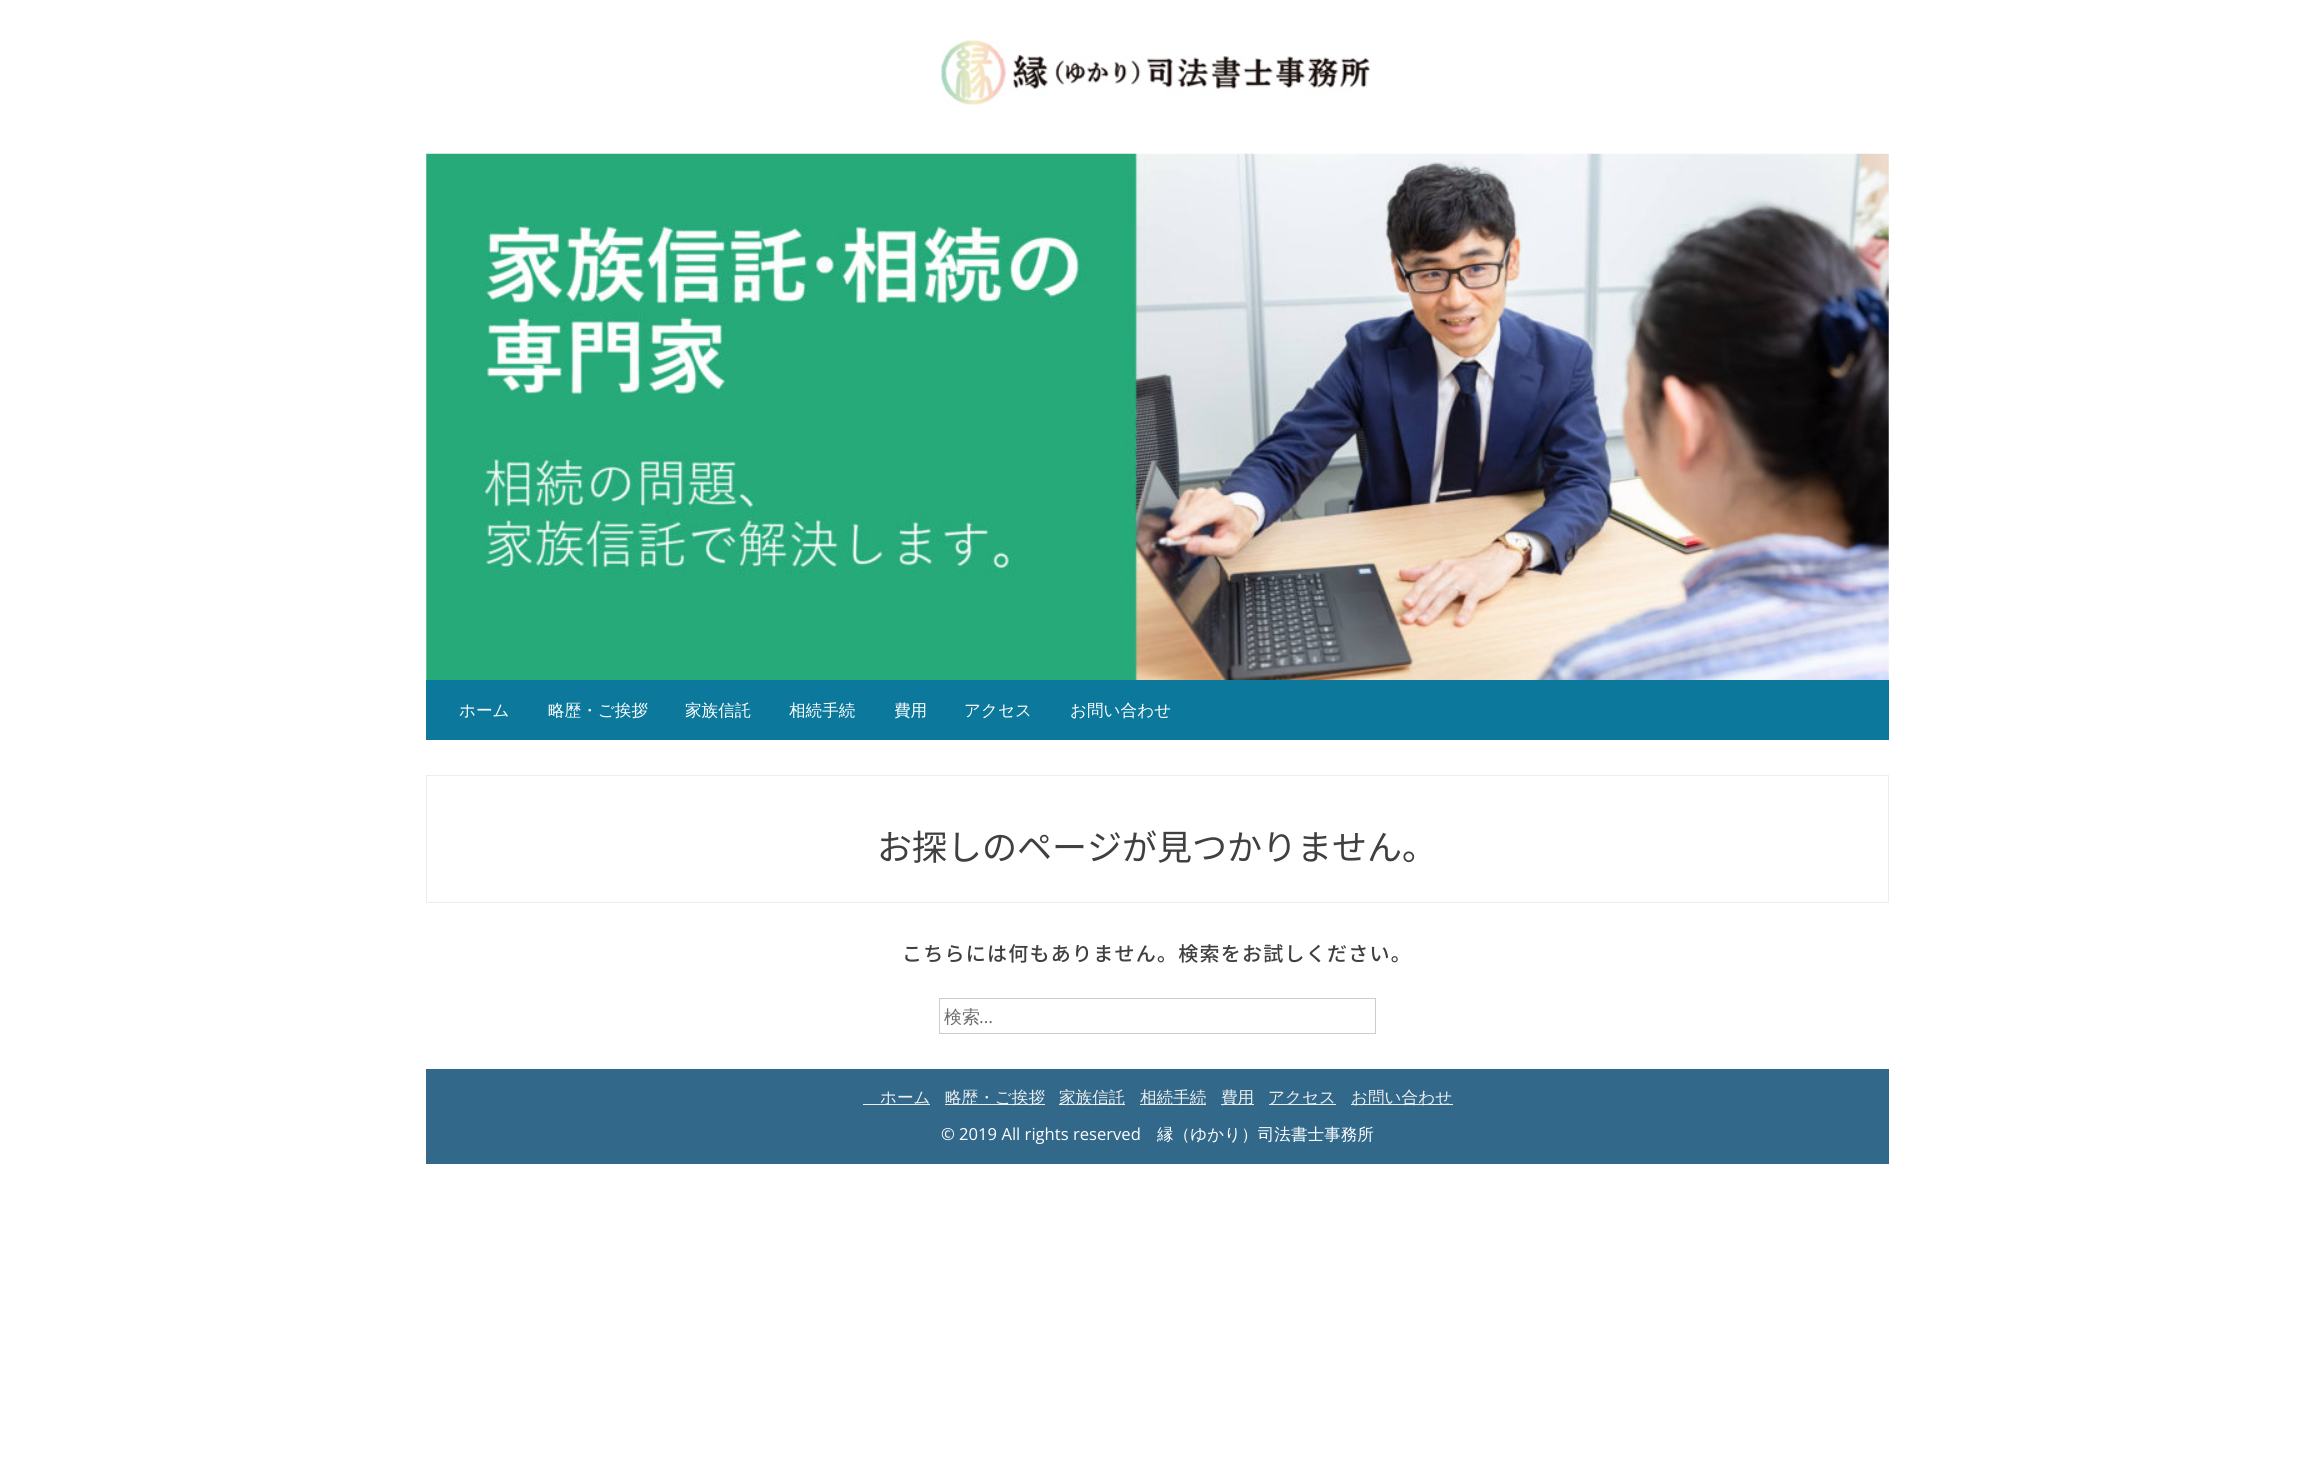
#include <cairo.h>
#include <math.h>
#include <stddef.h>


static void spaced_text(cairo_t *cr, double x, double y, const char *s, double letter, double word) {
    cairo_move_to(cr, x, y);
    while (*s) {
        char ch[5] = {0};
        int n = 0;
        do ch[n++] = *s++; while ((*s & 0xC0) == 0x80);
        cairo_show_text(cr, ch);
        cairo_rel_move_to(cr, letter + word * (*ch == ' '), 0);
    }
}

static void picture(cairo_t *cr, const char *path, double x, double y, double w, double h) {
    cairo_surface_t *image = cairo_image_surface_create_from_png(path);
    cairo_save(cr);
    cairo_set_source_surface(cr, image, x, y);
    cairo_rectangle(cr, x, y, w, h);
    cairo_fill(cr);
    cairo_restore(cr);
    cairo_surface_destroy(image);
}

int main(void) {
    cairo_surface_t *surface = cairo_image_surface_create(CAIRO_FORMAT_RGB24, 2315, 1474);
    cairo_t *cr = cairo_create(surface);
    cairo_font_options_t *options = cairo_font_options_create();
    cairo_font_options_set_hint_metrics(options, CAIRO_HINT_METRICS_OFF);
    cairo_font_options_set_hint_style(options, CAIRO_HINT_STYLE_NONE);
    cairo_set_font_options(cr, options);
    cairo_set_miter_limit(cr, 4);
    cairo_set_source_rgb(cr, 1, 1, 1);
    cairo_paint(cr);
    picture(cr, "img1.png", 941, 40, 430, 65);
    picture(cr, "img2.png", 426, 153, 1463, 527);
    cairo_set_source_rgb(cr, 0.043, 0.471, 0.612);
    cairo_rectangle(cr, 426, 680, 1463, 60);
    cairo_fill(cr);
    cairo_select_font_face(cr, "WenQuanYi Zen Hei Medium", CAIRO_FONT_SLANT_NORMAL, CAIRO_FONT_WEIGHT_NORMAL);
    cairo_set_font_size(cr, 16.6);
    cairo_set_source_rgb(cr, 1, 1, 1);
    cairo_move_to(cr, 459, 716);
    cairo_show_text(cr, "ホーム");
    cairo_move_to(cr, 548, 716);
    cairo_show_text(cr, "略歴・ご挨拶");
    cairo_move_to(cr, 685, 716);
    cairo_show_text(cr, "家族信託");
    cairo_move_to(cr, 789, 716);
    cairo_show_text(cr, "相続手続");
    cairo_move_to(cr, 894, 716);
    cairo_show_text(cr, "費用");
    cairo_move_to(cr, 964, 716);
    cairo_show_text(cr, "アクセス");
    cairo_move_to(cr, 1070, 716);
    cairo_show_text(cr, "お問い合わせ");
    cairo_rectangle(cr, 426.5, 775.5, 1462, 127);
    cairo_set_source_rgb(cr, 0.929, 0.929, 0.929);
    cairo_set_line_width(cr, 1);
    cairo_stroke(cr);
    cairo_select_font_face(cr, "Noto Sans JP", CAIRO_FONT_SLANT_NORMAL, CAIRO_FONT_WEIGHT_NORMAL);
    cairo_set_font_size(cr, 35);
    cairo_set_source_rgb(cr, 0.251, 0.251, 0.251);
    cairo_move_to(cr, 877, 860);
    cairo_show_text(cr, "お探しのページが見つかりません。");
    cairo_select_font_face(cr, "Noto Sans JP Medium", CAIRO_FONT_SLANT_NORMAL, CAIRO_FONT_WEIGHT_NORMAL);
    cairo_set_font_size(cr, 20);
    spaced_text(cr, 902, 961, "こちらには何もありません。検索をお試しください。", 1.25, 0);
    cairo_rectangle(cr, 939.5, 998.5, 436, 35);
    cairo_set_source_rgb(cr, 0.8, 0.8, 0.8);
    cairo_stroke(cr);
    cairo_select_font_face(cr, "WenQuanYi Zen Hei Medium", CAIRO_FONT_SLANT_NORMAL, CAIRO_FONT_WEIGHT_NORMAL);
    cairo_set_font_size(cr, 18);
    cairo_set_source_rgb(cr, 0.431, 0.431, 0.431);
    cairo_move_to(cr, 944, 1023);
    cairo_show_text(cr, "検索");
    cairo_select_font_face(cr, "Open Sans", CAIRO_FONT_SLANT_NORMAL, CAIRO_FONT_WEIGHT_NORMAL);
    cairo_move_to(cr, 979, 1023);
    cairo_show_text(cr, "…");
    cairo_set_source_rgb(cr, 0.196, 0.412, 0.545);
    cairo_rectangle(cr, 426, 1069, 1463, 95);
    cairo_fill(cr);
    cairo_set_source_rgb(cr, 0.933, 0.933, 0.933);
    cairo_rectangle(cr, 863, 1104, 67, 1);
    cairo_fill(cr);
    cairo_select_font_face(cr, "WenQuanYi Zen Hei Medium", CAIRO_FONT_SLANT_NORMAL, CAIRO_FONT_WEIGHT_NORMAL);
    cairo_set_font_size(cr, 16.6);
    cairo_move_to(cr, 880, 1103);
    cairo_show_text(cr, "ホーム");
    cairo_rectangle(cr, 945, 1104, 100, 1);
    cairo_fill(cr);
    cairo_move_to(cr, 945, 1103);
    cairo_show_text(cr, "略歴・ご挨拶");
    cairo_rectangle(cr, 1059, 1104, 66, 1);
    cairo_fill(cr);
    cairo_move_to(cr, 1059, 1103);
    cairo_show_text(cr, "家族信託");
    cairo_rectangle(cr, 1140, 1104, 66, 1);
    cairo_fill(cr);
    cairo_move_to(cr, 1140, 1103);
    cairo_show_text(cr, "相続手続");
    cairo_rectangle(cr, 1221, 1104, 33, 1);
    cairo_fill(cr);
    cairo_move_to(cr, 1221, 1103);
    cairo_show_text(cr, "費用");
    cairo_rectangle(cr, 1269, 1104, 67, 1);
    cairo_fill(cr);
    cairo_move_to(cr, 1268, 1103);
    cairo_show_text(cr, "アクセス");
    cairo_rectangle(cr, 1351, 1104, 102, 1);
    cairo_fill(cr);
    cairo_move_to(cr, 1351, 1103);
    cairo_show_text(cr, "お問い合わせ");
    cairo_select_font_face(cr, "Open Sans", CAIRO_FONT_SLANT_NORMAL, CAIRO_FONT_WEIGHT_NORMAL);
    cairo_set_source_rgb(cr, 1, 1, 1);
    cairo_move_to(cr, 941, 1140);
    cairo_show_text(cr, "© 2019 All rights reserved");
    cairo_select_font_face(cr, "WenQuanYi Zen Hei Medium", CAIRO_FONT_SLANT_NORMAL, CAIRO_FONT_WEIGHT_NORMAL);
    cairo_move_to(cr, 1157, 1140);
    cairo_show_text(cr, "縁（ゆかり）司法書士事務所");
    cairo_surface_write_to_png(surface, "page.png");
    cairo_font_options_destroy(options);
    cairo_destroy(cr);
    cairo_surface_destroy(surface);
    return 0;
}
